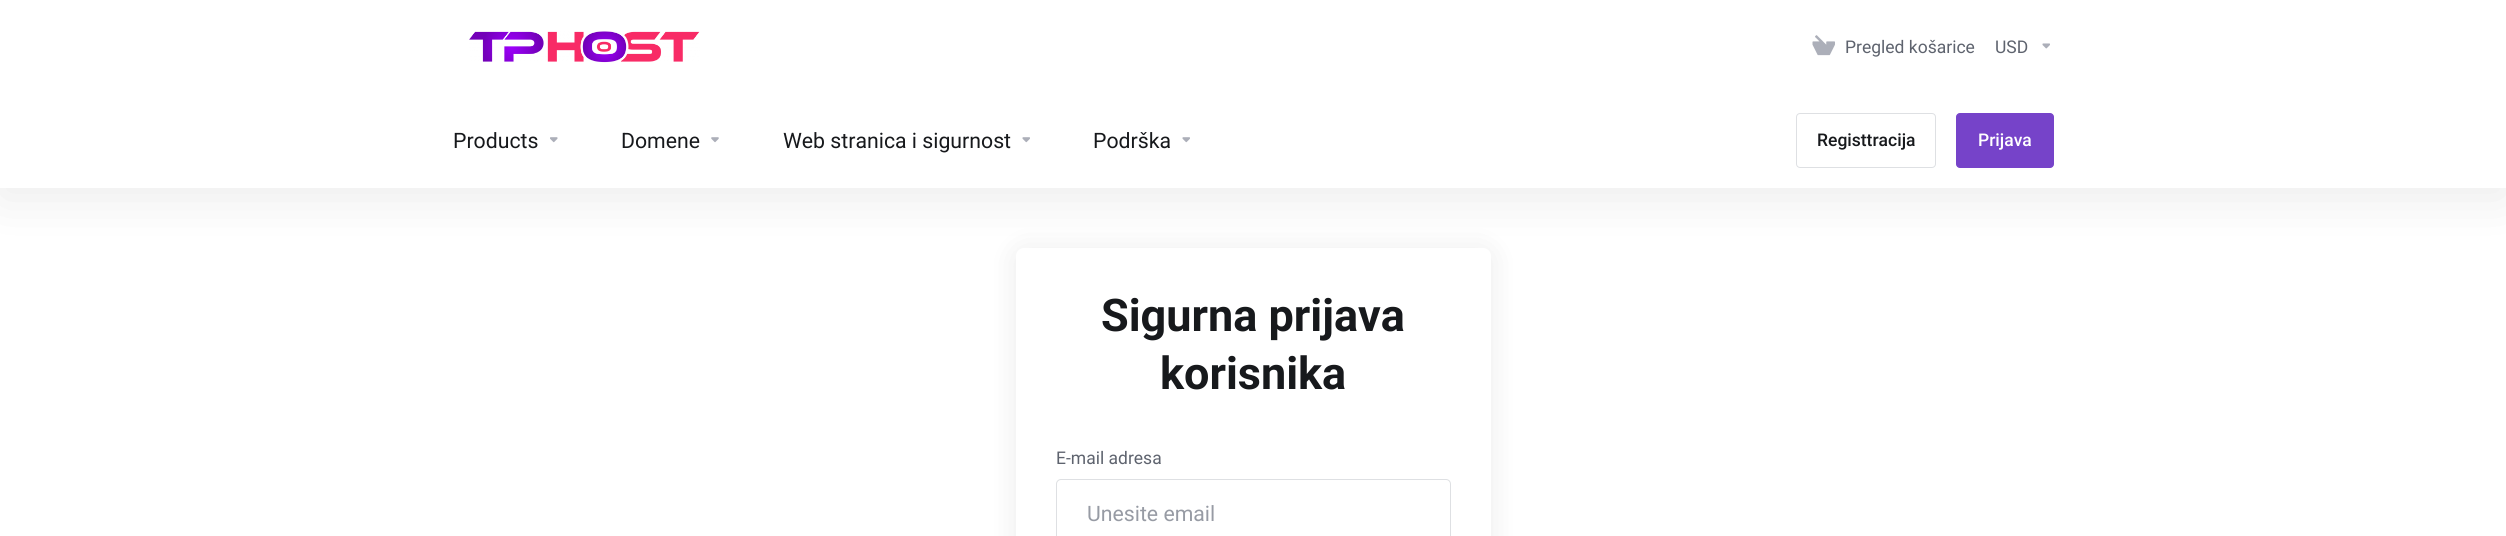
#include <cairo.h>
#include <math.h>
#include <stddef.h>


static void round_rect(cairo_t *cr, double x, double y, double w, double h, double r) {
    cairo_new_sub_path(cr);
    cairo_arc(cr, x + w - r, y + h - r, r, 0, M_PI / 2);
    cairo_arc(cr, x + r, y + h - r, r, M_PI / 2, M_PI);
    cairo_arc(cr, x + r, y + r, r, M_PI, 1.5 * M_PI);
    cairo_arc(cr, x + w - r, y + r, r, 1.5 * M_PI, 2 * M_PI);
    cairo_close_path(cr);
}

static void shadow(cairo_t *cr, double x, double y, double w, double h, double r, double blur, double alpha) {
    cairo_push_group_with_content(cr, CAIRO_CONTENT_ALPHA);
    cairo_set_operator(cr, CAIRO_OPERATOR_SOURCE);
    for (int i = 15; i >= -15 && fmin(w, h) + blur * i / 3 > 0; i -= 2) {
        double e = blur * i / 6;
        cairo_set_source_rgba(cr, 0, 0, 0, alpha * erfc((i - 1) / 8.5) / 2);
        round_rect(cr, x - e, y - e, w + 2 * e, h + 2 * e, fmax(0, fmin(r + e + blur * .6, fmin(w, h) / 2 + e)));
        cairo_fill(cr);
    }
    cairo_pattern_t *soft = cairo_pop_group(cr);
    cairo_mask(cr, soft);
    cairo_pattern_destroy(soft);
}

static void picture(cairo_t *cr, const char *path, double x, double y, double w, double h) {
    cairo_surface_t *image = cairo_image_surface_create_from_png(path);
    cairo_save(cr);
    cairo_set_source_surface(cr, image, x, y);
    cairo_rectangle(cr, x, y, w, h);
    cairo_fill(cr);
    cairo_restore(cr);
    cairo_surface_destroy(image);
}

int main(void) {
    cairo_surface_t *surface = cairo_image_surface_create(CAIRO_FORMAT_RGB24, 2506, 536);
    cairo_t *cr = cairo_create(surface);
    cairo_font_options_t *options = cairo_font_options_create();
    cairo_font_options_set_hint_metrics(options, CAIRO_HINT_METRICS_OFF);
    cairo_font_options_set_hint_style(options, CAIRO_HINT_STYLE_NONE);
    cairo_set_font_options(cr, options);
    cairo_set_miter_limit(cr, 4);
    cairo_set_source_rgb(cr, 1, 1, 1);
    cairo_paint(cr);
    cairo_set_source_rgb(cr, 0, 0, 0);
    shadow(cr, 1016, 250, 475, 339, 8, 15, 0.08);
    cairo_set_source_rgb(cr, 1, 1, 1);
    round_rect(cr, 1016, 248, 475, 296, 8);
    cairo_fill(cr);
    cairo_set_source_rgb(cr, 0, 0, 0);
    shadow(cr, 0, 10, 2506, 188, 0, 25, 0.08);
    cairo_set_source_rgb(cr, 1, 1, 1);
    cairo_rectangle(cr, 0, 0, 2506, 188);
    cairo_fill(cr);
    picture(cr, "img1.png", 469, 31, 231, 32);
    picture(cr, "img2.png", 1812, 35, 23, 21);
    cairo_select_font_face(cr, "Roboto", CAIRO_FONT_SLANT_NORMAL, CAIRO_FONT_WEIGHT_NORMAL);
    cairo_set_font_size(cr, 17.5);
    cairo_set_source_rgb(cr, 0.369, 0.388, 0.431);
    cairo_move_to(cr, 1845, 53);
    cairo_show_text(cr, "Pregled košarice");
    cairo_move_to(cr, 1995, 53);
    cairo_show_text(cr, "USD");
    picture(cr, "img3.png", 2042, 43, 8, 6);
    cairo_set_font_size(cr, 21.25);
    cairo_set_source_rgb(cr, 0.09, 0.098, 0.11);
    cairo_move_to(cr, 453, 148);
    cairo_show_text(cr, "Products");
    picture(cr, "img4.png", 550, 137, 8, 6);
    cairo_move_to(cr, 621, 148);
    cairo_show_text(cr, "Domene");
    picture(cr, "img5.png", 711, 137, 8, 6);
    cairo_move_to(cr, 783, 148);
    cairo_show_text(cr, "Web stranica i sigurnost");
    picture(cr, "img6.png", 1022, 137, 8, 6);
    cairo_move_to(cr, 1093, 148);
    cairo_show_text(cr, "Podrška");
    picture(cr, "img6.png", 1182, 137, 8, 6);
    round_rect(cr, 1796.5, 113.5, 139, 54, 3.5);
    cairo_set_source_rgb(cr, 0.871, 0.878, 0.89);
    cairo_set_line_width(cr, 1);
    cairo_stroke(cr);
    cairo_select_font_face(cr, "Roboto Medium", CAIRO_FONT_SLANT_NORMAL, CAIRO_FONT_WEIGHT_NORMAL);
    cairo_set_font_size(cr, 17.5);
    cairo_set_source_rgb(cr, 0.09, 0.098, 0.11);
    cairo_move_to(cr, 1817, 146);
    cairo_show_text(cr, "Registtracija");
    cairo_set_source_rgb(cr, 0.463, 0.263, 0.788);
    round_rect(cr, 1956.5, 113.5, 97, 54, 3.5);
    cairo_fill_preserve(cr);
    cairo_stroke(cr);
    cairo_set_source_rgb(cr, 1, 1, 1);
    cairo_move_to(cr, 1978, 146);
    cairo_show_text(cr, "Prijava");
    cairo_select_font_face(cr, "Roboto", CAIRO_FONT_SLANT_NORMAL, CAIRO_FONT_WEIGHT_BOLD);
    cairo_set_font_size(cr, 45);
    cairo_set_source_rgb(cr, 0.09, 0.098, 0.11);
    cairo_move_to(cr, 1101, 331);
    cairo_show_text(cr, "Sigurna prijava");
    cairo_move_to(cr, 1160, 389);
    cairo_show_text(cr, "korisnika");
    cairo_select_font_face(cr, "Roboto", CAIRO_FONT_SLANT_NORMAL, CAIRO_FONT_WEIGHT_NORMAL);
    cairo_set_font_size(cr, 17.5);
    cairo_set_source_rgb(cr, 0.369, 0.388, 0.431);
    cairo_move_to(cr, 1056, 464);
    cairo_show_text(cr, "E-mail adresa");
    round_rect(cr, 1056.5, 479.5, 394, 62, 4.5);
    cairo_set_source_rgb(cr, 0.871, 0.878, 0.89);
    cairo_stroke(cr);
    cairo_set_font_size(cr, 21.25);
    cairo_set_source_rgb(cr, 0.592, 0.608, 0.643);
    cairo_move_to(cr, 1087, 521);
    cairo_show_text(cr, "Unesite email");
    cairo_surface_write_to_png(surface, "page.png");
    cairo_font_options_destroy(options);
    cairo_destroy(cr);
    cairo_surface_destroy(surface);
    return 0;
}
